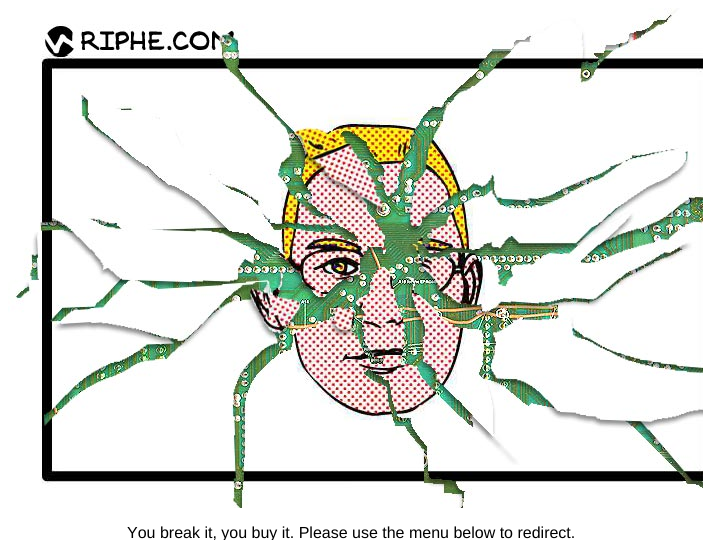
#include <cairo.h>
#include <math.h>
#include <stddef.h>


static void picture(cairo_t *cr, const char *path, double x, double y, double w, double h) {
    cairo_surface_t *image = cairo_image_surface_create_from_png(path);
    cairo_save(cr);
    cairo_set_source_surface(cr, image, x, y);
    cairo_rectangle(cr, x, y, w, h);
    cairo_fill(cr);
    cairo_restore(cr);
    cairo_surface_destroy(image);
}

int main(void) {
    cairo_surface_t *surface = cairo_image_surface_create(CAIRO_FORMAT_RGB24, 703, 540);
    cairo_t *cr = cairo_create(surface);
    cairo_font_options_t *options = cairo_font_options_create();
    cairo_font_options_set_hint_metrics(options, CAIRO_HINT_METRICS_OFF);
    cairo_font_options_set_hint_style(options, CAIRO_HINT_STYLE_NONE);
    cairo_set_font_options(cr, options);
    cairo_set_miter_limit(cr, 4);
    cairo_set_source_rgb(cr, 1, 1, 1);
    cairo_paint(cr);
    picture(cr, "img1.png", 8, 8, 695, 500);
    cairo_select_font_face(cr, "Liberation Sans", CAIRO_FONT_SLANT_NORMAL, CAIRO_FONT_WEIGHT_NORMAL);
    cairo_set_font_size(cr, 16);
    cairo_set_source_rgb(cr, 0, 0, 0);
    cairo_move_to(cr, 127, 538);
    cairo_show_text(cr, "You break it, you buy it. Please use the menu below to redirect.");
    cairo_surface_write_to_png(surface, "page.png");
    cairo_font_options_destroy(options);
    cairo_destroy(cr);
    cairo_surface_destroy(surface);
    return 0;
}
